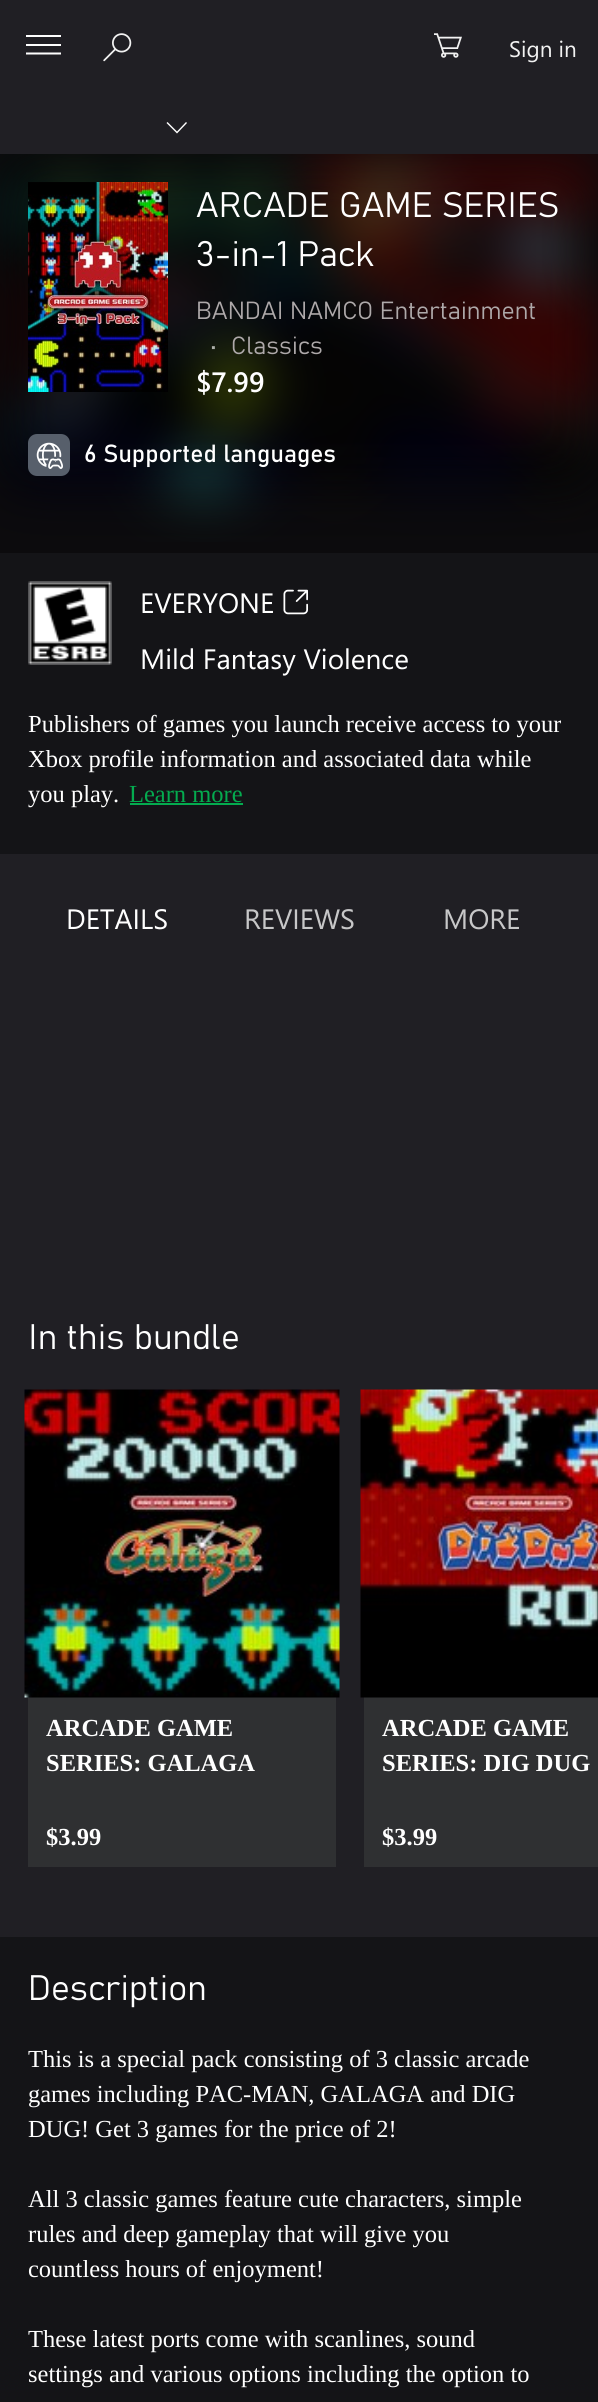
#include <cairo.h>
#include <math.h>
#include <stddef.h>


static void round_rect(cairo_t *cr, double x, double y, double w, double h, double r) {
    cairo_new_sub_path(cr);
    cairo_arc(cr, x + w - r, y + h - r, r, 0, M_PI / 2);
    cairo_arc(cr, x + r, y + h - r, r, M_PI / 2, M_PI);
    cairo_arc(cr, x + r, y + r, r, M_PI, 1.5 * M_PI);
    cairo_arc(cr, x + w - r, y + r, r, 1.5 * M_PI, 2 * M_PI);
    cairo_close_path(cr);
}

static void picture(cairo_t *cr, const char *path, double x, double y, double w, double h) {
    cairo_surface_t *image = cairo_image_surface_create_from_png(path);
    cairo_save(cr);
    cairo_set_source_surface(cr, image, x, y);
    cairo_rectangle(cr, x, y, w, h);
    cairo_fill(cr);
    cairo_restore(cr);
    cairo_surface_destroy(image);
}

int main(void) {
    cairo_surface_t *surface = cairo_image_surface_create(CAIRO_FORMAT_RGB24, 598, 2402);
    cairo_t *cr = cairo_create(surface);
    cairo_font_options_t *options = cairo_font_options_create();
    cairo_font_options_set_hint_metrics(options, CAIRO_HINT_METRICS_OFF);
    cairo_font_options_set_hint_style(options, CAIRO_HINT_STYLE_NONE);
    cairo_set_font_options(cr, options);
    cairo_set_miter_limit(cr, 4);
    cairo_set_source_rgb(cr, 0.125, 0.122, 0.141);
    cairo_paint(cr);
    cairo_set_source_rgb(cr, 0.047, 0.043, 0.051);
    cairo_rectangle(cr, 0, 154, 598, 399);
    cairo_fill(cr);
    cairo_set_source_rgb(cr, 1, 1, 1);
    cairo_new_path(cr);
    cairo_move_to(cr, 61, 37);
    cairo_line_to(cr, 26, 37);
    cairo_line_to(cr, 26, 35);
    cairo_line_to(cr, 61, 35);
    cairo_close_path(cr);
    cairo_move_to(cr, 61, 54.5);
    cairo_line_to(cr, 26, 54.5);
    cairo_line_to(cr, 26, 52.5);
    cairo_line_to(cr, 61, 52.5);
    cairo_close_path(cr);
    cairo_move_to(cr, 61, 46);
    cairo_line_to(cr, 26, 46);
    cairo_line_to(cr, 26, 44);
    cairo_line_to(cr, 61, 44);
    cairo_close_path(cr);
    cairo_fill(cr);
    picture(cr, "img1.png", 103, 33, 29, 29);
    picture(cr, "img2.png", 434, 33, 28, 25);
    cairo_select_font_face(cr, "Segoe UI", CAIRO_FONT_SLANT_NORMAL, CAIRO_FONT_WEIGHT_NORMAL);
    cairo_set_font_size(cr, 22.5);
    cairo_set_source_rgb(cr, 0.949, 0.949, 0.949);
    cairo_move_to(cr, 509, 57);
    cairo_show_text(cr, "Sign in");
    cairo_set_source_rgb(cr, 1, 1, 1);
    cairo_new_path(cr);
    cairo_move_to(cr, 186, 122);
    cairo_line_to(cr, 187, 123);
    cairo_line_to(cr, 177, 133.5);
    cairo_line_to(cr, 166.5, 123);
    cairo_line_to(cr, 167.5, 122);
    cairo_line_to(cr, 177, 131.5);
    cairo_close_path(cr);
    cairo_fill(cr);
    picture(cr, "img3.png", 0, 154, 598, 388);
    picture(cr, "img4.png", 28, 182, 140, 210);
    cairo_select_font_face(cr, "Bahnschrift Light", CAIRO_FONT_SLANT_NORMAL, CAIRO_FONT_WEIGHT_NORMAL);
    cairo_set_font_size(cr, 35);
    cairo_move_to(cr, 196, 217);
    cairo_show_text(cr, "ARCADE GAME SERIES");
    cairo_move_to(cr, 196, 266);
    cairo_show_text(cr, "3-in-1 Pack");
    cairo_set_font_size(cr, 24.5);
    cairo_set_source_rgb(cr, 0.682, 0.663, 0.667);
    cairo_move_to(cr, 196, 319);
    cairo_show_text(cr, "BANDAI NAMCO Entertainment");
    cairo_set_source_rgb(cr, 0.678, 0.686, 0.667);
    cairo_move_to(cr, 210, 354);
    cairo_show_text(cr, "•");
    cairo_set_source_rgb(cr, 0.682, 0.663, 0.667);
    cairo_move_to(cr, 231, 354);
    cairo_show_text(cr, "Classics");
    cairo_select_font_face(cr, "Segoe UI SemiBold", CAIRO_FONT_SLANT_NORMAL, CAIRO_FONT_WEIGHT_NORMAL);
    cairo_set_font_size(cr, 28);
    cairo_set_source_rgb(cr, 1, 1, 1);
    cairo_move_to(cr, 196, 392);
    cairo_show_text(cr, "$7.99");
    cairo_set_source_rgb(cr, 0.341, 0.373, 0.42);
    round_rect(cr, 28, 434, 42, 42, 9);
    cairo_fill(cr);
    picture(cr, "img5.png", 36, 442, 27, 27);
    cairo_select_font_face(cr, "Bahnschrift", CAIRO_FONT_SLANT_NORMAL, CAIRO_FONT_WEIGHT_NORMAL);
    cairo_set_font_size(cr, 24.5);
    cairo_set_source_rgb(cr, 1, 1, 1);
    cairo_move_to(cr, 84, 462);
    cairo_show_text(cr, "6 Supported languages");
    cairo_set_source_rgb(cr, 0.082, 0.082, 0.09);
    cairo_rectangle(cr, 0, 553, 598, 301);
    cairo_fill(cr);
    picture(cr, "img6.png", 28, 581, 84, 84);
    cairo_select_font_face(cr, "Segoe UI", CAIRO_FONT_SLANT_NORMAL, CAIRO_FONT_WEIGHT_NORMAL);
    cairo_set_font_size(cr, 28);
    cairo_set_source_rgb(cr, 1, 1, 1);
    cairo_move_to(cr, 140, 613);
    cairo_show_text(cr, "EVERYONE");
    picture(cr, "img7.png", 283, 589, 25, 26);
    cairo_move_to(cr, 140, 669);
    cairo_show_text(cr, "Mild Fantasy Violence");
    cairo_select_font_face(cr, "Liberation Serif", CAIRO_FONT_SLANT_NORMAL, CAIRO_FONT_WEIGHT_NORMAL);
    cairo_set_font_size(cr, 24.5);
    cairo_move_to(cr, 28, 732);
    cairo_show_text(cr, "Publishers of games you launch receive access to your");
    cairo_move_to(cr, 28, 767);
    cairo_show_text(cr, "Xbox profile information and associated data while");
    cairo_move_to(cr, 28, 802);
    cairo_show_text(cr, "you play.");
    cairo_set_source_rgb(cr, 0.016, 0.671, 0.31);
    cairo_move_to(cr, 129, 802);
    cairo_show_text(cr, "Learn more");
    cairo_rectangle(cr, 130, 803, 113, 2);
    cairo_fill(cr);
    cairo_select_font_face(cr, "Segoe UI", CAIRO_FONT_SLANT_NORMAL, CAIRO_FONT_WEIGHT_NORMAL);
    cairo_set_font_size(cr, 28);
    cairo_set_source_rgb(cr, 1, 1, 1);
    cairo_move_to(cr, 66, 929);
    cairo_show_text(cr, "DETAILS");
    cairo_set_source_rgb(cr, 0.78, 0.78, 0.784);
    cairo_move_to(cr, 244, 929);
    cairo_show_text(cr, "REVIEWS");
    cairo_move_to(cr, 443, 929);
    cairo_show_text(cr, "MORE");
    cairo_select_font_face(cr, "Bahnschrift Light", CAIRO_FONT_SLANT_NORMAL, CAIRO_FONT_WEIGHT_NORMAL);
    cairo_set_font_size(cr, 35);
    cairo_set_source_rgb(cr, 1, 1, 1);
    cairo_move_to(cr, 28, 1349);
    cairo_show_text(cr, "In this bundle");
    cairo_set_source_rgb(cr, 0.184, 0.188, 0.196);
    cairo_rectangle(cr, 28, 1697, 308, 170);
    cairo_fill(cr);
    picture(cr, "img8.png", 24, 1389, 316, 309);
    cairo_select_font_face(cr, "Liberation Serif", CAIRO_FONT_SLANT_NORMAL, CAIRO_FONT_WEIGHT_BOLD);
    cairo_set_font_size(cr, 24.5);
    cairo_set_source_rgb(cr, 1, 1, 1);
    cairo_move_to(cr, 46, 1736);
    cairo_show_text(cr, "ARCADE GAME");
    cairo_move_to(cr, 46, 1771);
    cairo_show_text(cr, "SERIES: GALAGA");
    cairo_move_to(cr, 46, 1845);
    cairo_show_text(cr, "$3.99");
    cairo_set_source_rgb(cr, 0.184, 0.188, 0.196);
    cairo_rectangle(cr, 364, 1697, 234, 170);
    cairo_fill(cr);
    picture(cr, "img9.png", 360, 1389, 238, 309);
    cairo_set_source_rgb(cr, 1, 1, 1);
    cairo_move_to(cr, 382, 1736);
    cairo_show_text(cr, "ARCADE GAME");
    cairo_move_to(cr, 382, 1771);
    cairo_show_text(cr, "SERIES: DIG DUG");
    cairo_move_to(cr, 382, 1845);
    cairo_show_text(cr, "$3.99");
    cairo_set_source_rgb(cr, 0.082, 0.082, 0.09);
    cairo_rectangle(cr, 0, 1937, 598, 465);
    cairo_fill(cr);
    cairo_select_font_face(cr, "Bahnschrift Light", CAIRO_FONT_SLANT_NORMAL, CAIRO_FONT_WEIGHT_NORMAL);
    cairo_set_font_size(cr, 35);
    cairo_set_source_rgb(cr, 1, 1, 1);
    cairo_move_to(cr, 28, 2000);
    cairo_show_text(cr, "Description");
    cairo_select_font_face(cr, "Liberation Serif", CAIRO_FONT_SLANT_NORMAL, CAIRO_FONT_WEIGHT_NORMAL);
    cairo_set_font_size(cr, 24.5);
    cairo_move_to(cr, 28, 2067);
    cairo_show_text(cr, "This is a special pack consisting of 3 classic arcade");
    cairo_move_to(cr, 28, 2102);
    cairo_show_text(cr, "games including PAC-MAN, GALAGA and DIG");
    cairo_move_to(cr, 28, 2137);
    cairo_show_text(cr, "DUG! Get 3 games for the price of 2!");
    cairo_move_to(cr, 28, 2207);
    cairo_show_text(cr, "All 3 classic games feature cute characters, simple");
    cairo_move_to(cr, 28, 2242);
    cairo_show_text(cr, "rules and deep gameplay that will give you");
    cairo_move_to(cr, 28, 2277);
    cairo_show_text(cr, "countless hours of enjoyment!");
    cairo_move_to(cr, 28, 2347);
    cairo_show_text(cr, "These latest ports come with scanlines, sound");
    cairo_move_to(cr, 28, 2382);
    cairo_show_text(cr, "settings and various options including the option to");
    cairo_surface_write_to_png(surface, "page.png");
    cairo_font_options_destroy(options);
    cairo_destroy(cr);
    cairo_surface_destroy(surface);
    return 0;
}
